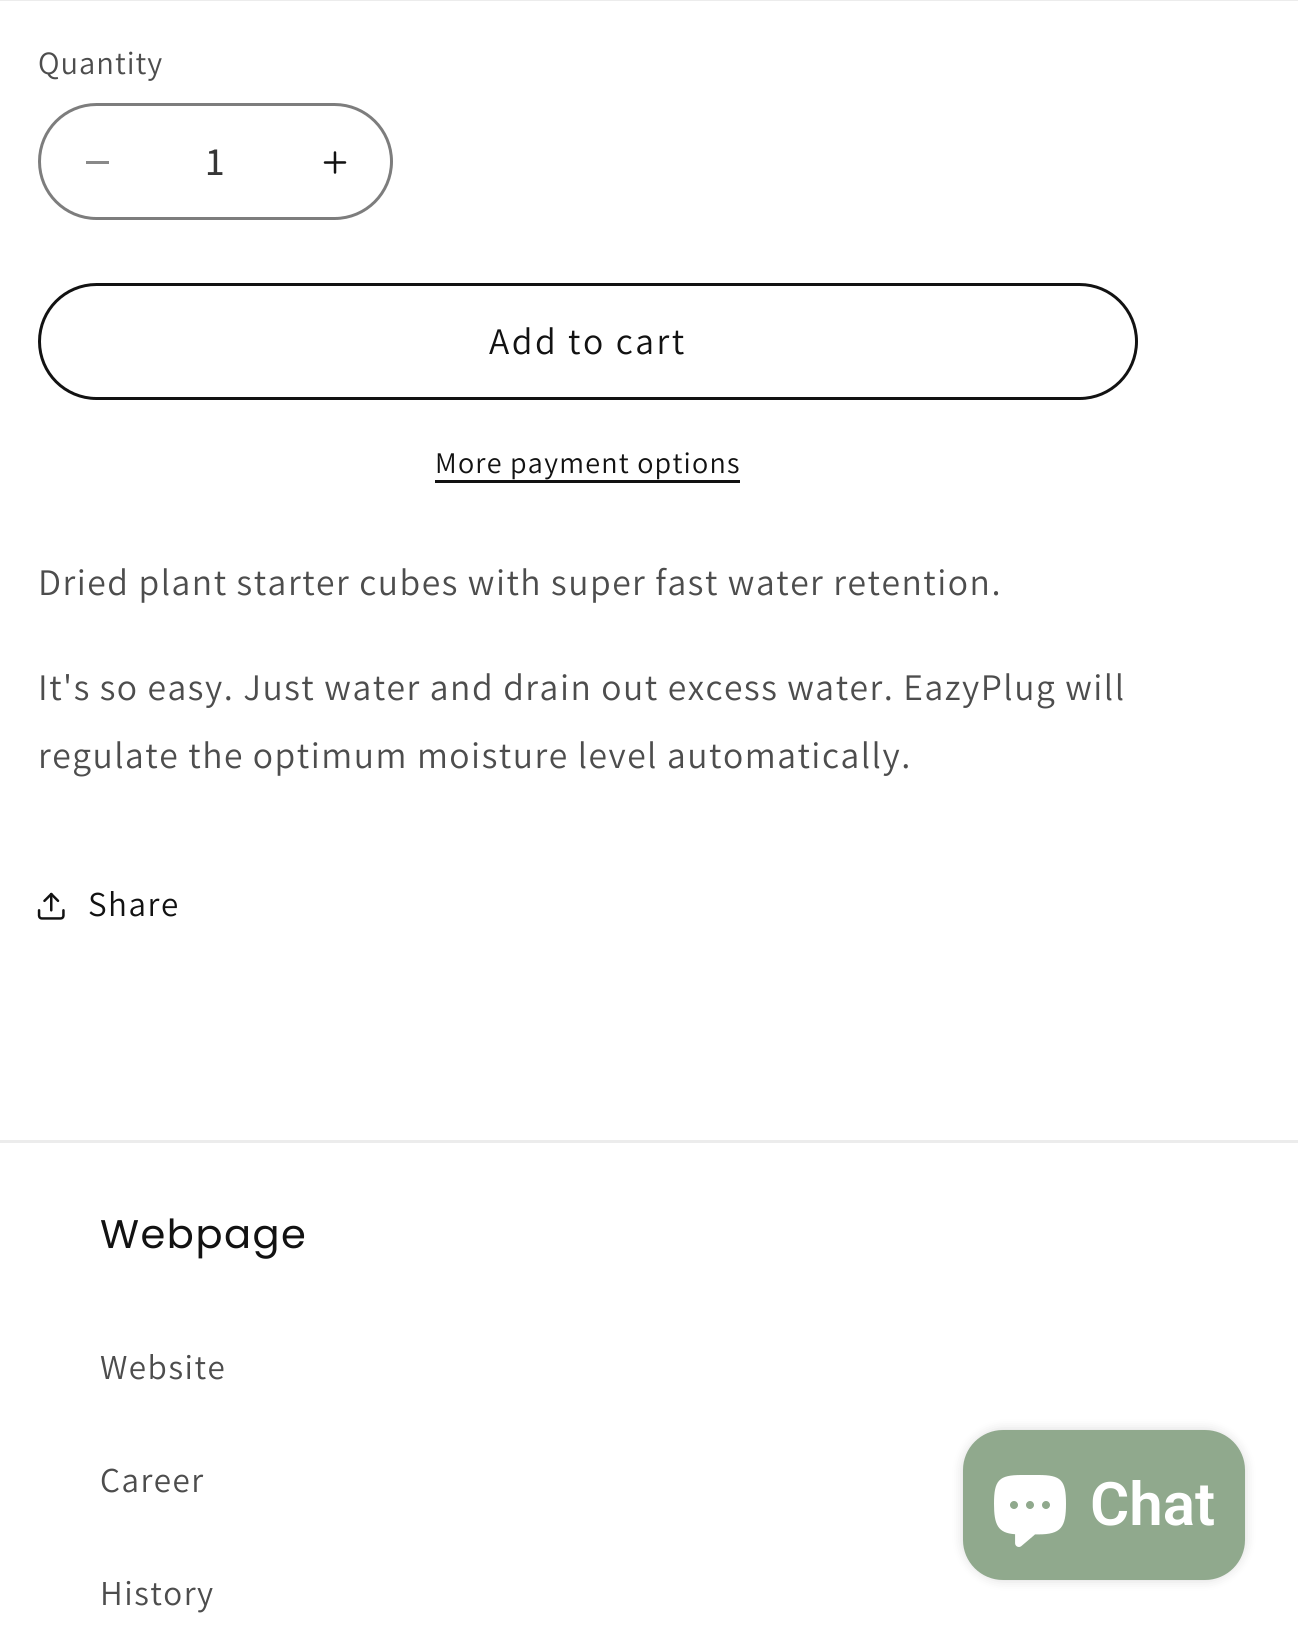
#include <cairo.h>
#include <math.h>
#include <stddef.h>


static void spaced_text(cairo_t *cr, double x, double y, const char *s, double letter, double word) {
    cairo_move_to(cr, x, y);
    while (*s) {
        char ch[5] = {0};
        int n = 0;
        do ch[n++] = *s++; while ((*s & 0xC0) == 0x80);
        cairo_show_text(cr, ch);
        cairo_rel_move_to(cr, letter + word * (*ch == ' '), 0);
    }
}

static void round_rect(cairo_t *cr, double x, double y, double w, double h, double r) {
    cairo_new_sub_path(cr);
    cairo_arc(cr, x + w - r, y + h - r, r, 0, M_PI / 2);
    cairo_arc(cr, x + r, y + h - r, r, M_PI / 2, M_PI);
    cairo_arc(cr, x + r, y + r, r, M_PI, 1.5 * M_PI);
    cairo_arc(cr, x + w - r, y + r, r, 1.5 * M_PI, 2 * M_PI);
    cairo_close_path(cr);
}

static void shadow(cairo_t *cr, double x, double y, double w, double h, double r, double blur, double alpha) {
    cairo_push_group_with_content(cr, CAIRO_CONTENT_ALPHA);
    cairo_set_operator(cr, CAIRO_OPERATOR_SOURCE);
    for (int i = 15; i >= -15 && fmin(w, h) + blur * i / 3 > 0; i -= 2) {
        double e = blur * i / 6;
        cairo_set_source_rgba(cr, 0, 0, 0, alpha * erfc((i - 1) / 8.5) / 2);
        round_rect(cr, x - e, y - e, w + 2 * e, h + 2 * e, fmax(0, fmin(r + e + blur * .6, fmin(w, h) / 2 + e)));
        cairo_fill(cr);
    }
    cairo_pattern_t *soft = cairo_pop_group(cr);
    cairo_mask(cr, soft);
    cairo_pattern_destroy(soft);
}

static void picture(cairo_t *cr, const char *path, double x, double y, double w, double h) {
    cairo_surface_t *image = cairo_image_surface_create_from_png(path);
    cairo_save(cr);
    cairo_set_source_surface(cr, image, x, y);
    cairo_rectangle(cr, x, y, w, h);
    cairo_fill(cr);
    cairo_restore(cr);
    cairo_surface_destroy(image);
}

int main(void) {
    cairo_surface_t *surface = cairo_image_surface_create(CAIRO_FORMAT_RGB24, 1298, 1631);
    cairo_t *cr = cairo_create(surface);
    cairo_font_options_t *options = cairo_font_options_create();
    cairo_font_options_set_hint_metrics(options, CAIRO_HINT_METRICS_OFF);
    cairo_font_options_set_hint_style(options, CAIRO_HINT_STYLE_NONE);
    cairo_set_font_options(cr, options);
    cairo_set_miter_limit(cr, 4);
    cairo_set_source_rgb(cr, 1, 1, 1);
    cairo_paint(cr);
    cairo_set_source_rgb(cr, 0.925, 0.925, 0.925);
    cairo_rectangle(cr, 0, 0, 1298, 1);
    cairo_fill(cr);
    cairo_select_font_face(cr, "Assistant", CAIRO_FONT_SLANT_NORMAL, CAIRO_FONT_WEIGHT_NORMAL);
    cairo_set_font_size(cr, 32.5);
    cairo_set_source_rgb(cr, 0.302, 0.302, 0.302);
    spaced_text(cr, 38, 74, "Quantity", 1, 0);
    cairo_set_source_rgb(cr, 0.537, 0.537, 0.537);
    cairo_rectangle(cr, 86, 161, 23, 3);
    cairo_fill(cr);
    picture(cr, "img1.png", 323, 151, 24, 23);
    round_rect(cr, 39.5, 104.5, 352, 114, 57);
    cairo_set_source_rgb(cr, 0.49, 0.49, 0.49);
    cairo_set_line_width(cr, 3);
    cairo_stroke(cr);
    cairo_select_font_face(cr, "Assistant Medium", CAIRO_FONT_SLANT_NORMAL, CAIRO_FONT_WEIGHT_NORMAL);
    cairo_set_font_size(cr, 40);
    cairo_set_source_rgb(cr, 0.212, 0.212, 0.212);
    cairo_move_to(cr, 206, 175);
    cairo_show_text(cr, "1");
    round_rect(cr, 39.5, 284.5, 1097, 114, 57);
    cairo_set_source_rgb(cr, 0.071, 0.071, 0.071);
    cairo_stroke(cr);
    cairo_select_font_face(cr, "Assistant", CAIRO_FONT_SLANT_NORMAL, CAIRO_FONT_WEIGHT_NORMAL);
    cairo_set_font_size(cr, 37.5);
    spaced_text(cr, 489, 354, "Add to cart", 2.5, 0);
    cairo_set_font_size(cr, 30);
    spaced_text(cr, 435, 473, "More payment options", 1.25, 0);
    cairo_rectangle(cr, 435, 480, 305, 3);
    cairo_fill(cr);
    cairo_set_font_size(cr, 37.5);
    cairo_set_source_rgb(cr, 0.302, 0.302, 0.302);
    spaced_text(cr, 38, 595, "Dried plant starter cubes with super fast water retention.", 1.5, 0);
    spaced_text(cr, 38, 700, "It's so easy. Just water and drain out excess water. EazyPlug will", 1.5, 0);
    spaced_text(cr, 38, 768, "regulate the optimum moisture level automatically.", 1.5, 0);
    picture(cr, "img2.png", 37, 892, 28, 28);
    cairo_set_font_size(cr, 35);
    cairo_set_source_rgb(cr, 0.071, 0.071, 0.071);
    spaced_text(cr, 88, 916, "Share", 1.5, 0);
    cairo_set_source_rgb(cr, 0.925, 0.925, 0.925);
    cairo_rectangle(cr, 0, 1140, 1298, 3);
    cairo_fill(cr);
    cairo_select_font_face(cr, "Poppins", CAIRO_FONT_SLANT_NORMAL, CAIRO_FONT_WEIGHT_NORMAL);
    cairo_set_font_size(cr, 40);
    cairo_set_source_rgb(cr, 0.071, 0.071, 0.071);
    spaced_text(cr, 100, 1248, "Webpage", 1.5, 0);
    cairo_select_font_face(cr, "Assistant", CAIRO_FONT_SLANT_NORMAL, CAIRO_FONT_WEIGHT_NORMAL);
    cairo_set_font_size(cr, 35);
    cairo_set_source_rgb(cr, 0.302, 0.302, 0.302);
    spaced_text(cr, 100, 1379, "Website", 1.5, 0);
    spaced_text(cr, 100, 1492, "Career", 1.5, 0);
    spaced_text(cr, 100, 1605, "History", 1.5, 0);
    cairo_set_source_rgb(cr, 0, 0, 0);
    shadow(cr, 963, 1430, 282, 150, 40, 6, 0.15);
    cairo_set_source_rgb(cr, 0.565, 0.663, 0.553);
    round_rect(cr, 963, 1430, 282, 150, 40);
    cairo_fill(cr);
    picture(cr, "img3.png", 994, 1475, 72, 72);
    cairo_select_font_face(cr, "Roboto SemiBold", CAIRO_FONT_SLANT_NORMAL, CAIRO_FONT_WEIGHT_NORMAL);
    cairo_set_font_size(cr, 60);
    cairo_set_source_rgb(cr, 1, 1, 1);
    cairo_move_to(cr, 1090, 1525);
    cairo_show_text(cr, "Chat");
    cairo_surface_write_to_png(surface, "page.png");
    cairo_font_options_destroy(options);
    cairo_destroy(cr);
    cairo_surface_destroy(surface);
    return 0;
}
